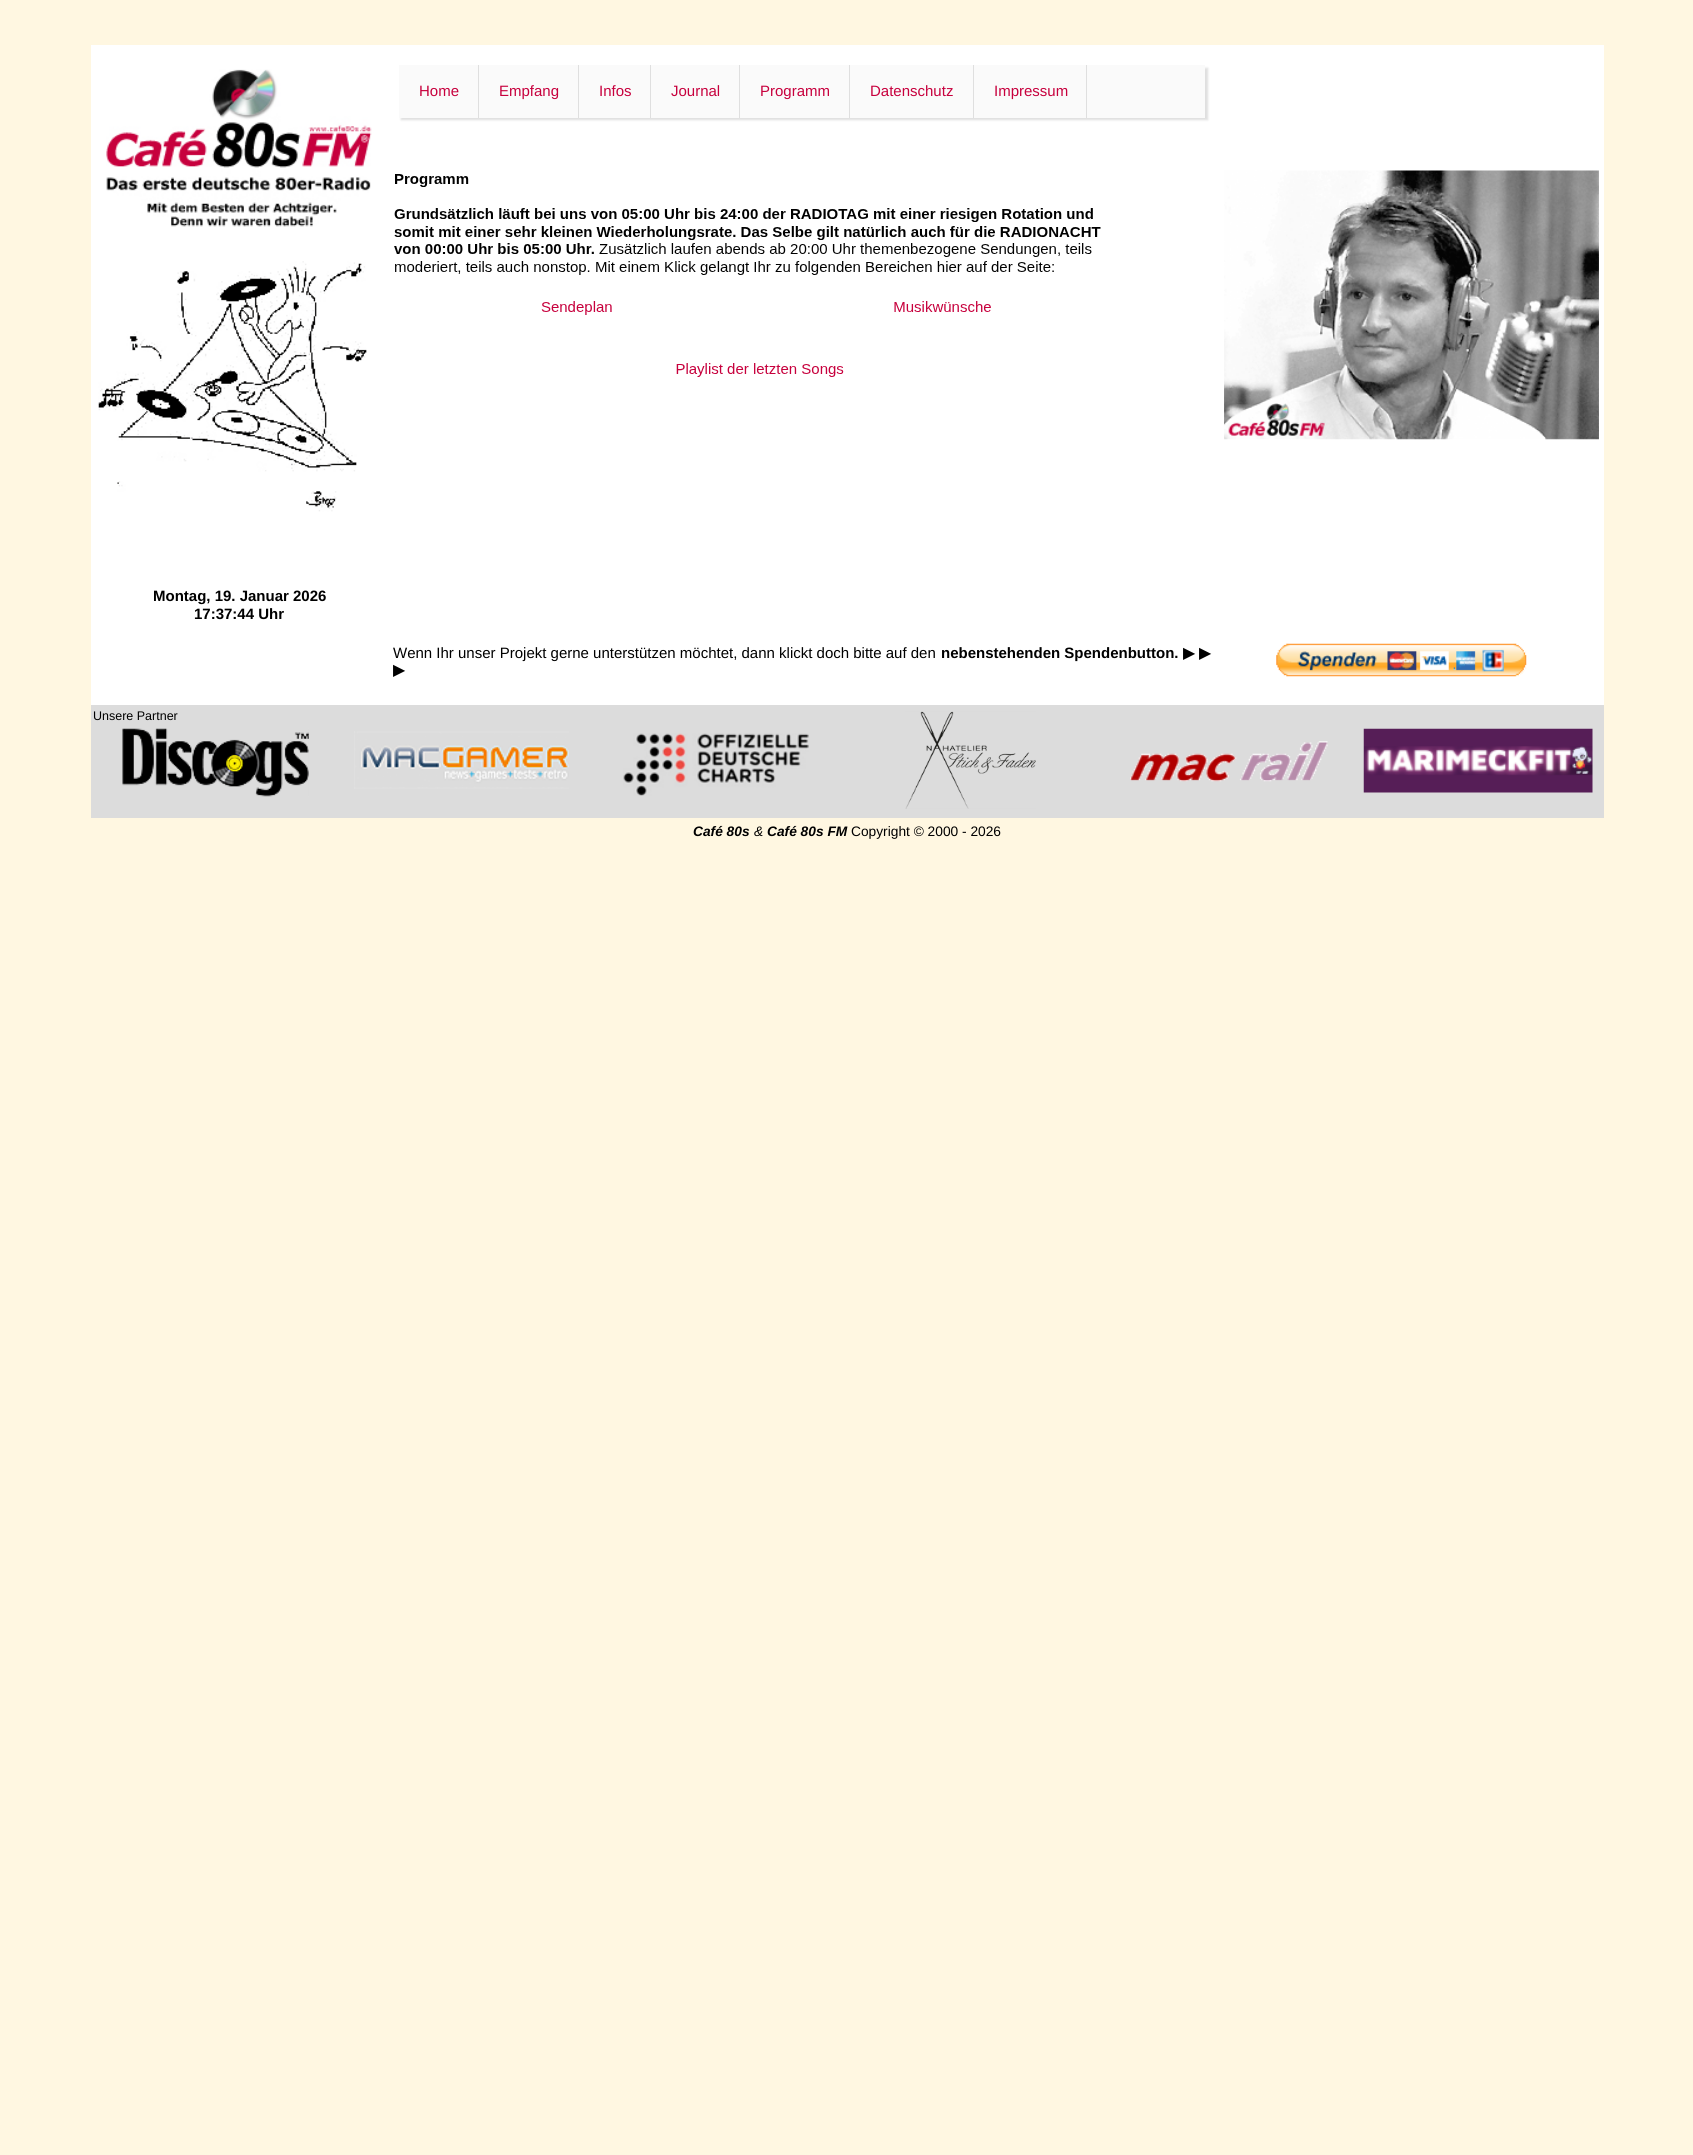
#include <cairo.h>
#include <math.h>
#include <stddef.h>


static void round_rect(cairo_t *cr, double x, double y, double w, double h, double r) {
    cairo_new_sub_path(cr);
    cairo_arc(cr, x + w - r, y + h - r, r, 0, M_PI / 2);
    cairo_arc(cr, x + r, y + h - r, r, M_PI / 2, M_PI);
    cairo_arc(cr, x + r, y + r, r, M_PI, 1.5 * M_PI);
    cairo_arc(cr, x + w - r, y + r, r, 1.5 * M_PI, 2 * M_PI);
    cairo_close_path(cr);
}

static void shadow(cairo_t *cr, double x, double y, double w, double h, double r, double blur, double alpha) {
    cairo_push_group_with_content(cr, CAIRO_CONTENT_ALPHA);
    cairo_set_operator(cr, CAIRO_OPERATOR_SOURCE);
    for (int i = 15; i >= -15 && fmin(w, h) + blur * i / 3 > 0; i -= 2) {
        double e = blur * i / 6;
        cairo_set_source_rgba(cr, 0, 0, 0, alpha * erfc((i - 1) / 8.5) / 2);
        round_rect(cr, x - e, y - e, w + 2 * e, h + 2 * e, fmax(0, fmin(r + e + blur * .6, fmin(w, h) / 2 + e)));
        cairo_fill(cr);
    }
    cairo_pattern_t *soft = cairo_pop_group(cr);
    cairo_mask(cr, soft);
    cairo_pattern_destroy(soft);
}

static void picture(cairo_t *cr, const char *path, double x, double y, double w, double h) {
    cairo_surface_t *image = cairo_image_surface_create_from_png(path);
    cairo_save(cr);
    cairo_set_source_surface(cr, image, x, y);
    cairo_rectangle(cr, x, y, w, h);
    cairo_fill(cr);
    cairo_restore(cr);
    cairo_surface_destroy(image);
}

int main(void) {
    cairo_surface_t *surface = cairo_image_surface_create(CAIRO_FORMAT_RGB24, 1693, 2155);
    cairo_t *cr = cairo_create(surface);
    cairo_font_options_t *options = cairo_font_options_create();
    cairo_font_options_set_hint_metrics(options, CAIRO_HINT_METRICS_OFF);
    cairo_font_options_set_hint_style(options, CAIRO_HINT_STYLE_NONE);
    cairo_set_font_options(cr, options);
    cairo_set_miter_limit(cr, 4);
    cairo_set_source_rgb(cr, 1, 0.965, 0.882);
    cairo_paint(cr);
    cairo_set_source_rgb(cr, 1, 1, 1);
    cairo_rectangle(cr, 91, 45, 1513, 660);
    cairo_fill(cr);
    picture(cr, "img1.png", 106, 69, 266, 158);
    picture(cr, "img2.png", 98, 261, 269, 251);
    cairo_select_font_face(cr, "Liberation Sans", CAIRO_FONT_SLANT_NORMAL, CAIRO_FONT_WEIGHT_BOLD);
    cairo_set_font_size(cr, 15);
    cairo_set_source_rgb(cr, 0, 0, 0);
    cairo_move_to(cr, 153, 601);
    cairo_show_text(cr, "Montag, 19. Januar 2026");
    cairo_move_to(cr, 194, 619);
    cairo_show_text(cr, "17:37:44 Uhr");
    cairo_set_source_rgb(cr, 0.875, 0.875, 0.875);
    shadow(cr, 401, 68, 807, 52, 0, 1, 1);
    cairo_set_source_rgb(cr, 0.98, 0.98, 0.98);
    cairo_rectangle(cr, 399, 65, 806, 53);
    cairo_fill(cr);
    cairo_set_source_rgb(cr, 0.875, 0.875, 0.875);
    cairo_rectangle(cr, 478, 65, 1, 53);
    cairo_fill(cr);
    cairo_select_font_face(cr, "Liberation Sans", CAIRO_FONT_SLANT_NORMAL, CAIRO_FONT_WEIGHT_NORMAL);
    cairo_set_source_rgb(cr, 0.78, 0, 0.239);
    cairo_move_to(cr, 419, 96);
    cairo_show_text(cr, "Home");
    cairo_set_source_rgb(cr, 0.875, 0.875, 0.875);
    cairo_rectangle(cr, 578, 65, 1, 53);
    cairo_fill(cr);
    cairo_set_source_rgb(cr, 0.78, 0, 0.239);
    cairo_move_to(cr, 499, 96);
    cairo_show_text(cr, "Empfang");
    cairo_set_source_rgb(cr, 0.875, 0.875, 0.875);
    cairo_rectangle(cr, 650, 65, 1, 53);
    cairo_fill(cr);
    cairo_set_source_rgb(cr, 0.78, 0, 0.239);
    cairo_move_to(cr, 599, 96);
    cairo_show_text(cr, "Infos");
    cairo_set_source_rgb(cr, 0.875, 0.875, 0.875);
    cairo_rectangle(cr, 739, 65, 1, 53);
    cairo_fill(cr);
    cairo_set_source_rgb(cr, 0.78, 0, 0.239);
    cairo_move_to(cr, 671, 96);
    cairo_show_text(cr, "Journal");
    cairo_set_source_rgb(cr, 0.875, 0.875, 0.875);
    cairo_rectangle(cr, 849, 65, 1, 53);
    cairo_fill(cr);
    cairo_set_source_rgb(cr, 0.78, 0, 0.239);
    cairo_move_to(cr, 760, 96);
    cairo_show_text(cr, "Programm");
    cairo_set_source_rgb(cr, 0.875, 0.875, 0.875);
    cairo_rectangle(cr, 973, 65, 1, 53);
    cairo_fill(cr);
    cairo_set_source_rgb(cr, 0.78, 0, 0.239);
    cairo_move_to(cr, 870, 96);
    cairo_show_text(cr, "Datenschutz");
    cairo_set_source_rgb(cr, 0.875, 0.875, 0.875);
    cairo_rectangle(cr, 1086, 65, 1, 53);
    cairo_fill(cr);
    cairo_set_source_rgb(cr, 0.78, 0, 0.239);
    cairo_move_to(cr, 994, 96);
    cairo_show_text(cr, "Impressum");
    picture(cr, "img3.png", 394, 170, 1205, 270);
    cairo_set_source_rgb(cr, 0, 0, 0);
    cairo_move_to(cr, 393, 658);
    cairo_show_text(cr, "Wenn Ihr unser Projekt gerne unterstützen möchtet, dann klickt doch bitte auf den");
    cairo_select_font_face(cr, "Liberation Sans", CAIRO_FONT_SLANT_NORMAL, CAIRO_FONT_WEIGHT_BOLD);
    cairo_move_to(cr, 941, 658);
    cairo_show_text(cr, "nebenstehenden Spendenbutton.");
    cairo_select_font_face(cr, "DejaVu Sans", CAIRO_FONT_SLANT_NORMAL, CAIRO_FONT_WEIGHT_BOLD);
    cairo_move_to(cr, 1183, 658);
    cairo_show_text(cr, "▶");
    cairo_move_to(cr, 1199, 658);
    cairo_show_text(cr, "▶");
    cairo_move_to(cr, 393, 675);
    cairo_show_text(cr, "▶");
    picture(cr, "img4.png", 1276, 643, 251, 34);
    cairo_set_source_rgb(cr, 0.863, 0.863, 0.863);
    cairo_rectangle(cr, 91, 705, 1513, 113);
    cairo_fill(cr);
    cairo_select_font_face(cr, "Liberation Sans", CAIRO_FONT_SLANT_NORMAL, CAIRO_FONT_WEIGHT_NORMAL);
    cairo_set_font_size(cr, 12.5);
    cairo_set_source_rgb(cr, 0, 0, 0);
    cairo_move_to(cr, 93, 720);
    cairo_show_text(cr, "Unsere Partner");
    picture(cr, "img5.png", 122, 728, 187, 69);
    picture(cr, "img6.png", 354, 731, 215, 58);
    picture(cr, "img7.png", 623, 733, 186, 63);
    picture(cr, "img8.png", 905, 711, 131, 98);
    picture(cr, "img9.png", 1130, 741, 198, 41);
    picture(cr, "img10.png", 1363, 728, 230, 65);
    cairo_select_font_face(cr, "Liberation Sans", CAIRO_FONT_SLANT_ITALIC, CAIRO_FONT_WEIGHT_BOLD);
    cairo_set_font_size(cr, 13.75);
    cairo_move_to(cr, 693, 836);
    cairo_show_text(cr, "Café 80s");
    cairo_select_font_face(cr, "Liberation Sans", CAIRO_FONT_SLANT_ITALIC, CAIRO_FONT_WEIGHT_NORMAL);
    cairo_move_to(cr, 754, 836);
    cairo_show_text(cr, "&");
    cairo_select_font_face(cr, "Liberation Sans", CAIRO_FONT_SLANT_ITALIC, CAIRO_FONT_WEIGHT_BOLD);
    cairo_move_to(cr, 767, 836);
    cairo_show_text(cr, "Café 80s FM");
    cairo_select_font_face(cr, "Liberation Sans", CAIRO_FONT_SLANT_NORMAL, CAIRO_FONT_WEIGHT_NORMAL);
    cairo_move_to(cr, 851, 836);
    cairo_show_text(cr, "Copyright © 2000 - 2026");
    cairo_surface_write_to_png(surface, "page.png");
    cairo_font_options_destroy(options);
    cairo_destroy(cr);
    cairo_surface_destroy(surface);
    return 0;
}
